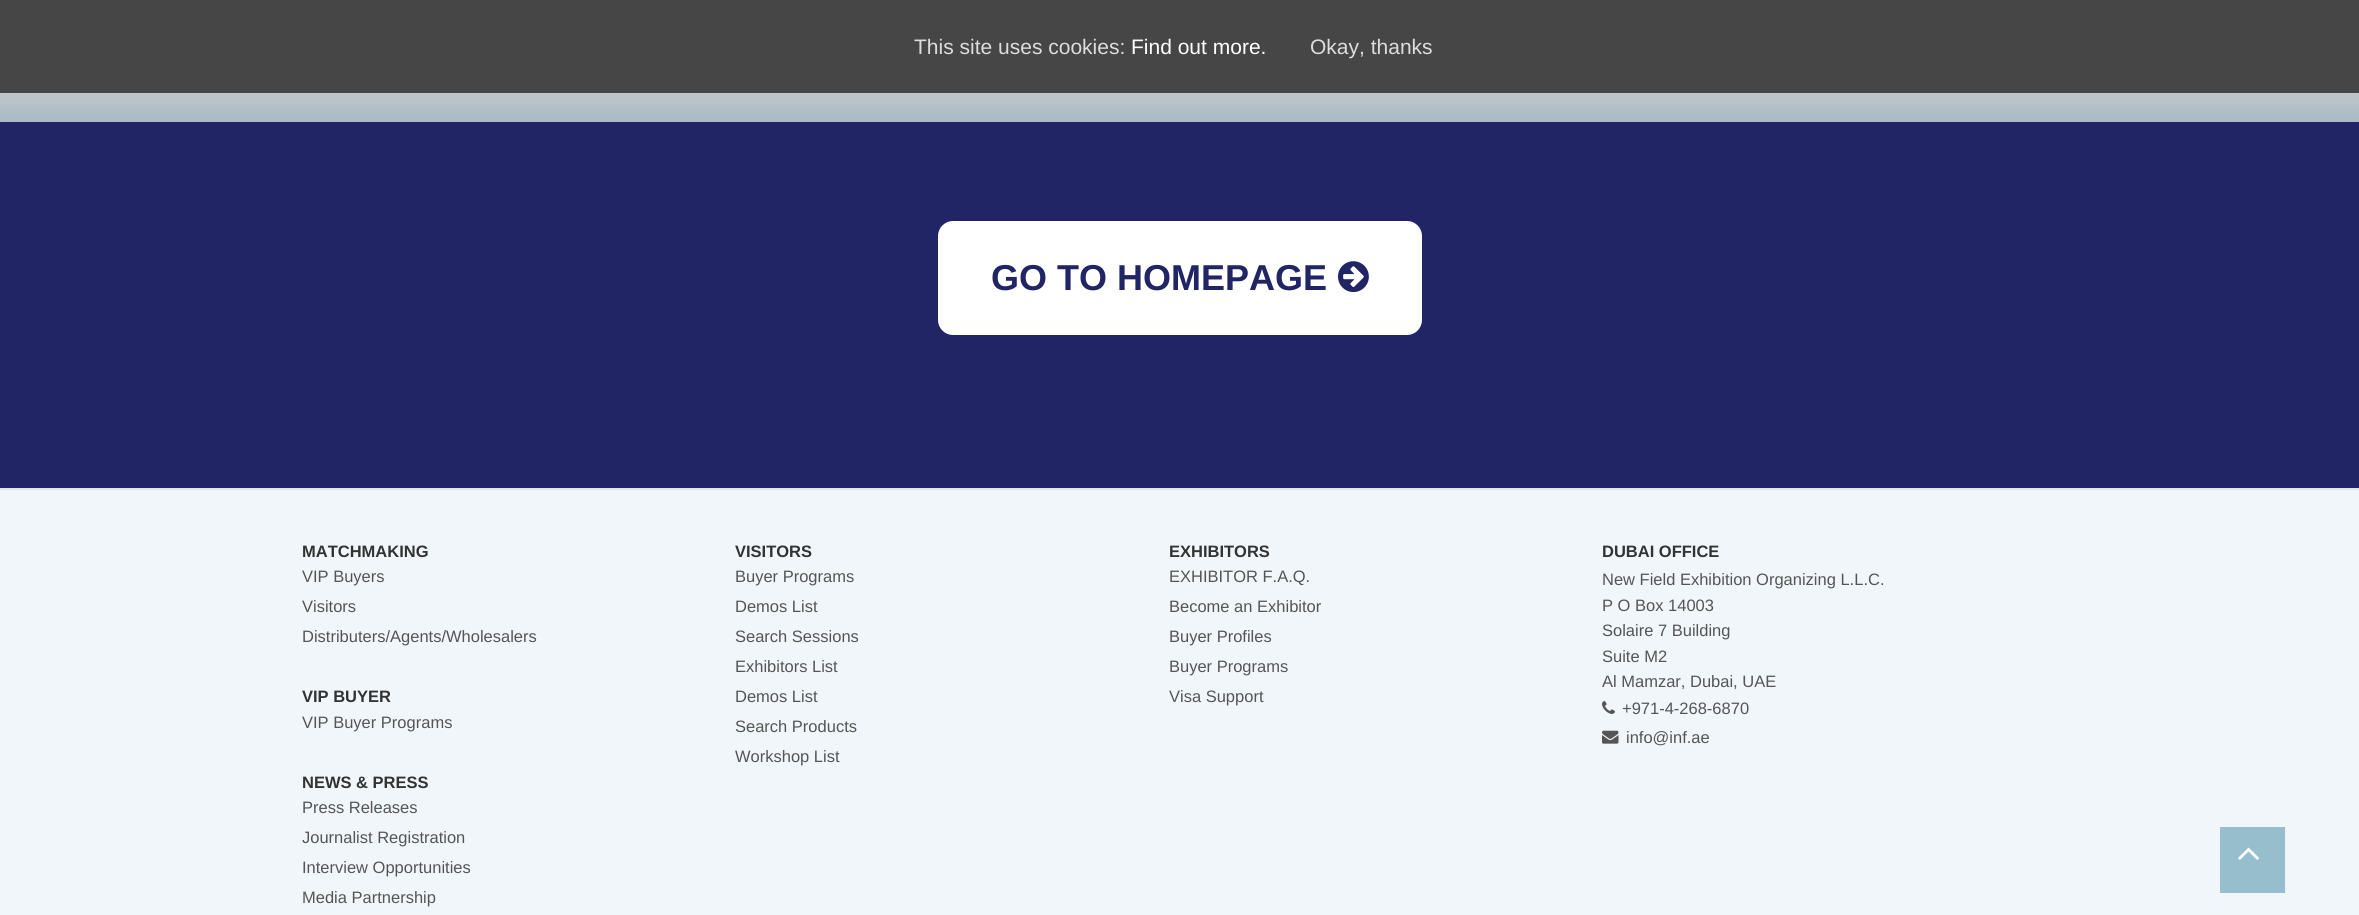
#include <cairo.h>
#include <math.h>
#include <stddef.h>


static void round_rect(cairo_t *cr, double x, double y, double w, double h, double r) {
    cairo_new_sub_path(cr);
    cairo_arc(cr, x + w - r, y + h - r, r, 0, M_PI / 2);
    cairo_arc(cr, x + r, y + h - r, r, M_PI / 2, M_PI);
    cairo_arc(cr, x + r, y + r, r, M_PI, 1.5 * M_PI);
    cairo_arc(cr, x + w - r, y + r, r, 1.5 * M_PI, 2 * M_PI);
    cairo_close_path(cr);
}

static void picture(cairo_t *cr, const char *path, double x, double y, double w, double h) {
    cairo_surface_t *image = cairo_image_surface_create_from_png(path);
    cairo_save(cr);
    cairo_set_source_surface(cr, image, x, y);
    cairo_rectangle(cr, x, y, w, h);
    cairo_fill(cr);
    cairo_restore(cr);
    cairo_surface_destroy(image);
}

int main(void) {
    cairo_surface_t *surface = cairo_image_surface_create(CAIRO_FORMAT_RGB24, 2359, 915);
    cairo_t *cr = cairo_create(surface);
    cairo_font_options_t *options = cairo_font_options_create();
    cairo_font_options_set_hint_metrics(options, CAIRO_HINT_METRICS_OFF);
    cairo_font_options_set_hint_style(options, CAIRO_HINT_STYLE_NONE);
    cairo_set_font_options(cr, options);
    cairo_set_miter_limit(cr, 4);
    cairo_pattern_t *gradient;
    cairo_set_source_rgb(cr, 0.941, 0.961, 0.973);
    cairo_paint(cr);
    cairo_set_source_rgb(cr, 0.275, 0.275, 0.275);
    cairo_rectangle(cr, 0, 0, 2359, 93);
    cairo_fill(cr);
    cairo_select_font_face(cr, "Liberation Sans", CAIRO_FONT_SLANT_NORMAL, CAIRO_FONT_WEIGHT_NORMAL);
    cairo_set_font_size(cr, 21);
    cairo_set_source_rgb(cr, 0.867, 0.867, 0.867);
    cairo_move_to(cr, 914, 54);
    cairo_show_text(cr, "This site uses cookies:");
    cairo_set_source_rgb(cr, 1, 1, 1);
    cairo_move_to(cr, 1131, 54);
    cairo_show_text(cr, "Find out more.");
    cairo_set_source_rgb(cr, 0.867, 0.867, 0.867);
    cairo_move_to(cr, 1310, 54);
    cairo_show_text(cr, "Okay, thanks");
    gradient = cairo_pattern_create_linear(1180, 60, 1180, 120);
    cairo_pattern_add_color_stop_rgba(gradient, 0, 0.839, 0.835, 0.831, 1);
    cairo_pattern_add_color_stop_rgba(gradient, 1, 0.671, 0.729, 0.765, 1);
    cairo_set_source(cr, gradient);
    cairo_pattern_destroy(gradient);
    cairo_rectangle(cr, 0, 93, 2359, 27);
    cairo_fill(cr);
    cairo_set_source_rgb(cr, 0.671, 0.729, 0.765);
    cairo_rectangle(cr, 0, 120, 2359, 2);
    cairo_fill(cr);
    cairo_set_source_rgb(cr, 0.129, 0.141, 0.396);
    cairo_rectangle(cr, 0, 122, 2359, 366);
    cairo_fill(cr);
    cairo_set_source_rgb(cr, 1, 1, 1);
    round_rect(cr, 939, 222, 482, 112, 14);
    cairo_fill_preserve(cr);
    cairo_stroke(cr);
    cairo_select_font_face(cr, "Liberation Sans", CAIRO_FONT_SLANT_NORMAL, CAIRO_FONT_WEIGHT_BOLD);
    cairo_set_font_size(cr, 36);
    cairo_set_source_rgb(cr, 0.129, 0.141, 0.396);
    cairo_move_to(cr, 991, 290);
    cairo_show_text(cr, "GO TO HOMEPAGE");
    picture(cr, "img1.png", 1338, 261, 31, 32);
    cairo_set_source_rgb(cr, 0.89, 0.906, 0.929);
    cairo_rectangle(cr, 0, 488, 2359, 2);
    cairo_fill(cr);
    cairo_set_font_size(cr, 16.5);
    cairo_set_source_rgb(cr, 0.2, 0.2, 0.2);
    cairo_move_to(cr, 302, 557);
    cairo_show_text(cr, "MATCHMAKING");
    cairo_select_font_face(cr, "Liberation Sans", CAIRO_FONT_SLANT_NORMAL, CAIRO_FONT_WEIGHT_NORMAL);
    cairo_set_source_rgb(cr, 0.333, 0.333, 0.333);
    cairo_move_to(cr, 302, 582);
    cairo_show_text(cr, "VIP Buyers");
    cairo_move_to(cr, 302, 612);
    cairo_show_text(cr, "Visitors");
    cairo_move_to(cr, 302, 642);
    cairo_show_text(cr, "Distributers/Agents/Wholesalers");
    cairo_select_font_face(cr, "Liberation Sans", CAIRO_FONT_SLANT_NORMAL, CAIRO_FONT_WEIGHT_BOLD);
    cairo_set_source_rgb(cr, 0.2, 0.2, 0.2);
    cairo_move_to(cr, 302, 702);
    cairo_show_text(cr, "VIP BUYER");
    cairo_select_font_face(cr, "Liberation Sans", CAIRO_FONT_SLANT_NORMAL, CAIRO_FONT_WEIGHT_NORMAL);
    cairo_set_source_rgb(cr, 0.333, 0.333, 0.333);
    cairo_move_to(cr, 302, 728);
    cairo_show_text(cr, "VIP Buyer Programs");
    cairo_select_font_face(cr, "Liberation Sans", CAIRO_FONT_SLANT_NORMAL, CAIRO_FONT_WEIGHT_BOLD);
    cairo_set_source_rgb(cr, 0.2, 0.2, 0.2);
    cairo_move_to(cr, 302, 788);
    cairo_show_text(cr, "NEWS & PRESS");
    cairo_select_font_face(cr, "Liberation Sans", CAIRO_FONT_SLANT_NORMAL, CAIRO_FONT_WEIGHT_NORMAL);
    cairo_set_source_rgb(cr, 0.333, 0.333, 0.333);
    cairo_move_to(cr, 302, 813);
    cairo_show_text(cr, "Press Releases");
    cairo_move_to(cr, 302, 843);
    cairo_show_text(cr, "Journalist Registration");
    cairo_move_to(cr, 302, 873);
    cairo_show_text(cr, "Interview Opportunities");
    cairo_move_to(cr, 302, 903);
    cairo_show_text(cr, "Media Partnership");
    cairo_select_font_face(cr, "Liberation Sans", CAIRO_FONT_SLANT_NORMAL, CAIRO_FONT_WEIGHT_BOLD);
    cairo_set_source_rgb(cr, 0.2, 0.2, 0.2);
    cairo_move_to(cr, 735, 557);
    cairo_show_text(cr, "VISITORS");
    cairo_select_font_face(cr, "Liberation Sans", CAIRO_FONT_SLANT_NORMAL, CAIRO_FONT_WEIGHT_NORMAL);
    cairo_set_source_rgb(cr, 0.333, 0.333, 0.333);
    cairo_move_to(cr, 735, 582);
    cairo_show_text(cr, "Buyer Programs");
    cairo_move_to(cr, 735, 612);
    cairo_show_text(cr, "Demos List");
    cairo_move_to(cr, 735, 642);
    cairo_show_text(cr, "Search Sessions");
    cairo_move_to(cr, 735, 672);
    cairo_show_text(cr, "Exhibitors List");
    cairo_move_to(cr, 735, 702);
    cairo_show_text(cr, "Demos List");
    cairo_move_to(cr, 735, 732);
    cairo_show_text(cr, "Search Products");
    cairo_move_to(cr, 735, 762);
    cairo_show_text(cr, "Workshop List");
    cairo_select_font_face(cr, "Liberation Sans", CAIRO_FONT_SLANT_NORMAL, CAIRO_FONT_WEIGHT_BOLD);
    cairo_set_source_rgb(cr, 0.2, 0.2, 0.2);
    cairo_move_to(cr, 1169, 557);
    cairo_show_text(cr, "EXHIBITORS");
    cairo_select_font_face(cr, "Liberation Sans", CAIRO_FONT_SLANT_NORMAL, CAIRO_FONT_WEIGHT_NORMAL);
    cairo_set_source_rgb(cr, 0.333, 0.333, 0.333);
    cairo_move_to(cr, 1169, 582);
    cairo_show_text(cr, "EXHIBITOR F.A.Q.");
    cairo_move_to(cr, 1169, 612);
    cairo_show_text(cr, "Become an Exhibitor");
    cairo_move_to(cr, 1169, 642);
    cairo_show_text(cr, "Buyer Profiles");
    cairo_move_to(cr, 1169, 672);
    cairo_show_text(cr, "Buyer Programs");
    cairo_move_to(cr, 1169, 702);
    cairo_show_text(cr, "Visa Support");
    cairo_select_font_face(cr, "Liberation Sans", CAIRO_FONT_SLANT_NORMAL, CAIRO_FONT_WEIGHT_BOLD);
    cairo_set_source_rgb(cr, 0.2, 0.2, 0.2);
    cairo_move_to(cr, 1602, 557);
    cairo_show_text(cr, "DUBAI OFFICE");
    cairo_select_font_face(cr, "Liberation Sans", CAIRO_FONT_SLANT_NORMAL, CAIRO_FONT_WEIGHT_NORMAL);
    cairo_set_source_rgb(cr, 0.333, 0.333, 0.333);
    cairo_move_to(cr, 1602, 585);
    cairo_show_text(cr, "New Field Exhibition Organizing L.L.C.");
    cairo_move_to(cr, 1602, 611);
    cairo_show_text(cr, "P O Box 14003");
    cairo_move_to(cr, 1602, 636);
    cairo_show_text(cr, "Solaire 7 Building");
    cairo_move_to(cr, 1602, 662);
    cairo_show_text(cr, "Suite M2");
    cairo_move_to(cr, 1602, 687);
    cairo_show_text(cr, "Al Mamzar, Dubai, UAE");
    picture(cr, "img2.png", 1602, 701, 13, 13);
    cairo_move_to(cr, 1622, 714);
    cairo_show_text(cr, "+971-4-268-6870");
    picture(cr, "img3.png", 1602, 730, 17, 14);
    cairo_move_to(cr, 1626, 743);
    cairo_show_text(cr, "info@inf.ae");
    cairo_set_source_rgb(cr, 0.592, 0.745, 0.8);
    cairo_rectangle(cr, 2220, 827, 65, 66);
    cairo_fill(cr);
    picture(cr, "img4.png", 2238, 847, 21, 13);
    cairo_surface_write_to_png(surface, "page.png");
    cairo_font_options_destroy(options);
    cairo_destroy(cr);
    cairo_surface_destroy(surface);
    return 0;
}
